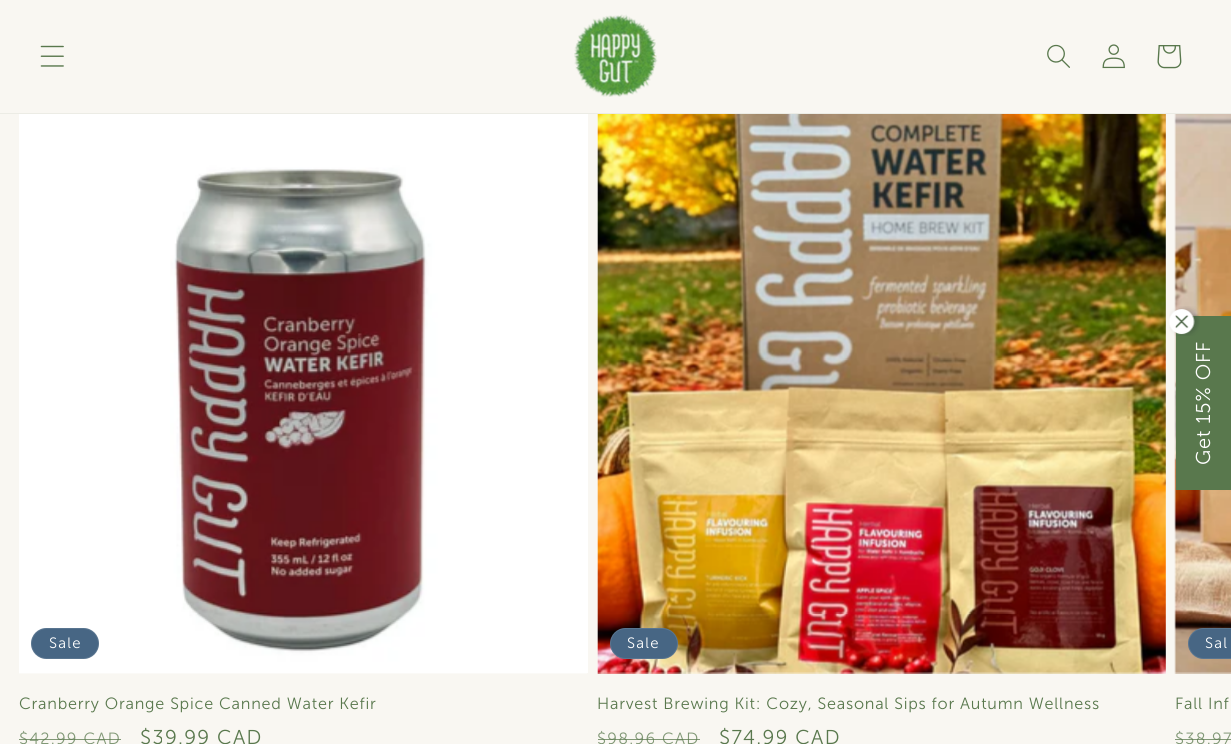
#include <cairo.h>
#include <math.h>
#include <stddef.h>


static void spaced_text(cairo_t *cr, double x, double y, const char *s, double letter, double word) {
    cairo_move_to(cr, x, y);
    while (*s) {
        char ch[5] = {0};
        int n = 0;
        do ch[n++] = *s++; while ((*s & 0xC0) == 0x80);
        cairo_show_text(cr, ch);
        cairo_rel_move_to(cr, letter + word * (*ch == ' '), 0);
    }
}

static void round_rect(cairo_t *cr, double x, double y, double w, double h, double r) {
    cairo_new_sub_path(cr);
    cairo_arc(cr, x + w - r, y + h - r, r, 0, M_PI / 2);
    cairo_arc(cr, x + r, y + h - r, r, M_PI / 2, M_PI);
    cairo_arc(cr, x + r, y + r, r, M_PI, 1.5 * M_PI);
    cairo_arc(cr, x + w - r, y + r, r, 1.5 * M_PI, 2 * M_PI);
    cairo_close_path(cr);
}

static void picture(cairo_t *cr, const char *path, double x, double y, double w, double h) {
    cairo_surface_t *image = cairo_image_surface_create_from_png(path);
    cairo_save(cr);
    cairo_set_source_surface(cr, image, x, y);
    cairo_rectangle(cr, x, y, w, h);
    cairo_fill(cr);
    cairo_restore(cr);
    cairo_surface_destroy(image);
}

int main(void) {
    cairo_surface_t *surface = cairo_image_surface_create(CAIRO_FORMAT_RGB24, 1231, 744);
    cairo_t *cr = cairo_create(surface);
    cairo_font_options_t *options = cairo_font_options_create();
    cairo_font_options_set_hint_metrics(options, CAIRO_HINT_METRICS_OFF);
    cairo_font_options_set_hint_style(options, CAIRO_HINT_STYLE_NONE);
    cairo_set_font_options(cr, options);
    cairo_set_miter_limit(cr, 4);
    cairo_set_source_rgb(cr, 0.973, 0.965, 0.949);
    cairo_paint(cr);
    cairo_set_source_rgb(cr, 0.922, 0.925, 0.898);
    cairo_rectangle(cr, 0, 113, 1231, 1);
    cairo_fill(cr);
    picture(cr, "img1.png", 40, 45, 24, 22);
    picture(cr, "img2.png", 574, 14, 84, 83);
    picture(cr, "img3.png", 1047, 44, 23, 24);
    picture(cr, "img4.png", 1102, 44, 23, 25);
    picture(cr, "img5.png", 1157, 45, 25, 24);
    cairo_set_source_rgb(cr, 1, 1, 1);
    cairo_rectangle(cr, 1175, 114, 56, 559);
    cairo_fill(cr);
    picture(cr, "img9.png", 1174, 114, 57, 560);
    cairo_set_source_rgb(cr, 0.349, 0.471, 0.302);
    cairo_rectangle(cr, 1176, 316, 55, 174);
    cairo_fill(cr);
    picture(cr, "img6.png", 1169, 306, 31, 30);
    cairo_select_font_face(cr, "Museo Sans Light", CAIRO_FONT_SLANT_NORMAL, CAIRO_FONT_WEIGHT_NORMAL);
    cairo_set_font_size(cr, 20);
    cairo_set_source_rgb(cr, 1, 1, 1);
    cairo_save(cr);
    cairo_translate(cr, 1210, 465);
    cairo_rotate(cr, -90 * M_PI / 180);
    spaced_text(cr, 0, 0, "Get 15% OFF", 0.75, 0);
    cairo_restore(cr);
    cairo_rectangle(cr, 19, 114, 569, 559);
    cairo_fill(cr);
    picture(cr, "img7.png", 19, 114, 568, 560);
    cairo_set_source_rgb(cr, 0.278, 0.4, 0.518);
    round_rect(cr, 31, 628, 68, 31, 15.5);
    cairo_fill(cr);
    round_rect(cr, 31.5, 628.5, 67, 30, 15);
    cairo_set_source_rgba(cr, 1, 1, 1, 0.1);
    cairo_set_line_width(cr, 1);
    cairo_stroke(cr);
    cairo_set_font_size(cr, 15);
    cairo_set_source_rgb(cr, 1, 1, 1);
    spaced_text(cr, 49, 648, "Sale", 1.25, 0);
    cairo_set_font_size(cr, 16.25);
    cairo_set_source_rgb(cr, 0.349, 0.471, 0.302);
    spaced_text(cr, 19, 709, "Cranberry Orange Spice Canned Water Kefir", 0.75, 0);
    cairo_set_source_rgb(cr, 0.506, 0.596, 0.463);
    spaced_text(cr, 19, 744, "$42.99 CAD", 1.25, 0);
    cairo_set_source_rgba(cr, 0.349, 0.471, 0.302, 0.75);
    cairo_rectangle(cr, 19, 739, 102, 1);
    cairo_fill(cr);
    cairo_set_font_size(cr, 20);
    cairo_set_source_rgb(cr, 0.349, 0.471, 0.302);
    spaced_text(cr, 140, 744, "$39.99 CAD", 1.25, 0);
    picture(cr, "img8.png", 597, 114, 569, 560);
    cairo_set_source_rgb(cr, 0.278, 0.4, 0.518);
    round_rect(cr, 610, 628, 68, 31, 15.5);
    cairo_fill(cr);
    round_rect(cr, 610.5, 628.5, 67, 30, 15);
    cairo_set_source_rgba(cr, 1, 1, 1, 0.1);
    cairo_stroke(cr);
    cairo_set_font_size(cr, 15);
    cairo_set_source_rgb(cr, 1, 1, 1);
    spaced_text(cr, 627, 648, "Sale", 1.25, 0);
    cairo_set_font_size(cr, 16.25);
    cairo_set_source_rgb(cr, 0.349, 0.471, 0.302);
    spaced_text(cr, 597, 709, "Harvest Brewing Kit: Cozy, Seasonal Sips for Autumn Wellness", 0.75, 0);
    cairo_set_source_rgb(cr, 0.506, 0.596, 0.463);
    spaced_text(cr, 597, 744, "$98.96 CAD", 1.25, 0);
    cairo_set_source_rgba(cr, 0.349, 0.471, 0.302, 0.75);
    cairo_rectangle(cr, 598, 739, 102, 1);
    cairo_fill(cr);
    cairo_set_font_size(cr, 20);
    cairo_set_source_rgb(cr, 0.349, 0.471, 0.302);
    spaced_text(cr, 719, 744, "$74.99 CAD", 1.25, 0);
    cairo_set_source_rgb(cr, 0.278, 0.4, 0.518);
    cairo_new_path(cr);
    cairo_move_to(cr, 1203.5, 628);
    cairo_line_to(cr, 1231, 628);
    cairo_line_to(cr, 1231, 659);
    cairo_line_to(cr, 1203.5, 659);
    cairo_curve_to(cr, 1195, 659, 1188, 652, 1188, 643.5);
    cairo_curve_to(cr, 1188, 635, 1195, 628, 1203.5, 628);
    cairo_close_path(cr);
    cairo_fill(cr);
    round_rect(cr, 1188.5, 628.5, 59, 30, 15);
    cairo_set_source_rgba(cr, 1, 1, 1, 0.1);
    cairo_stroke(cr);
    cairo_set_font_size(cr, 15);
    cairo_set_source_rgb(cr, 1, 1, 1);
    spaced_text(cr, 1205, 648, "Sal", 1.25, 0);
    cairo_set_font_size(cr, 16.25);
    cairo_set_source_rgb(cr, 0.349, 0.471, 0.302);
    spaced_text(cr, 1175, 709, "Fall Inf", 0.75, 0);
    cairo_set_source_rgb(cr, 0.506, 0.596, 0.463);
    spaced_text(cr, 1175, 744, "$38.97", 1.25, 0);
    cairo_set_source_rgba(cr, 0.349, 0.471, 0.302, 0.75);
    cairo_rectangle(cr, 1175, 739, 56, 1);
    cairo_fill(cr);
    cairo_surface_write_to_png(surface, "page.png");
    cairo_font_options_destroy(options);
    cairo_destroy(cr);
    cairo_surface_destroy(surface);
    return 0;
}
